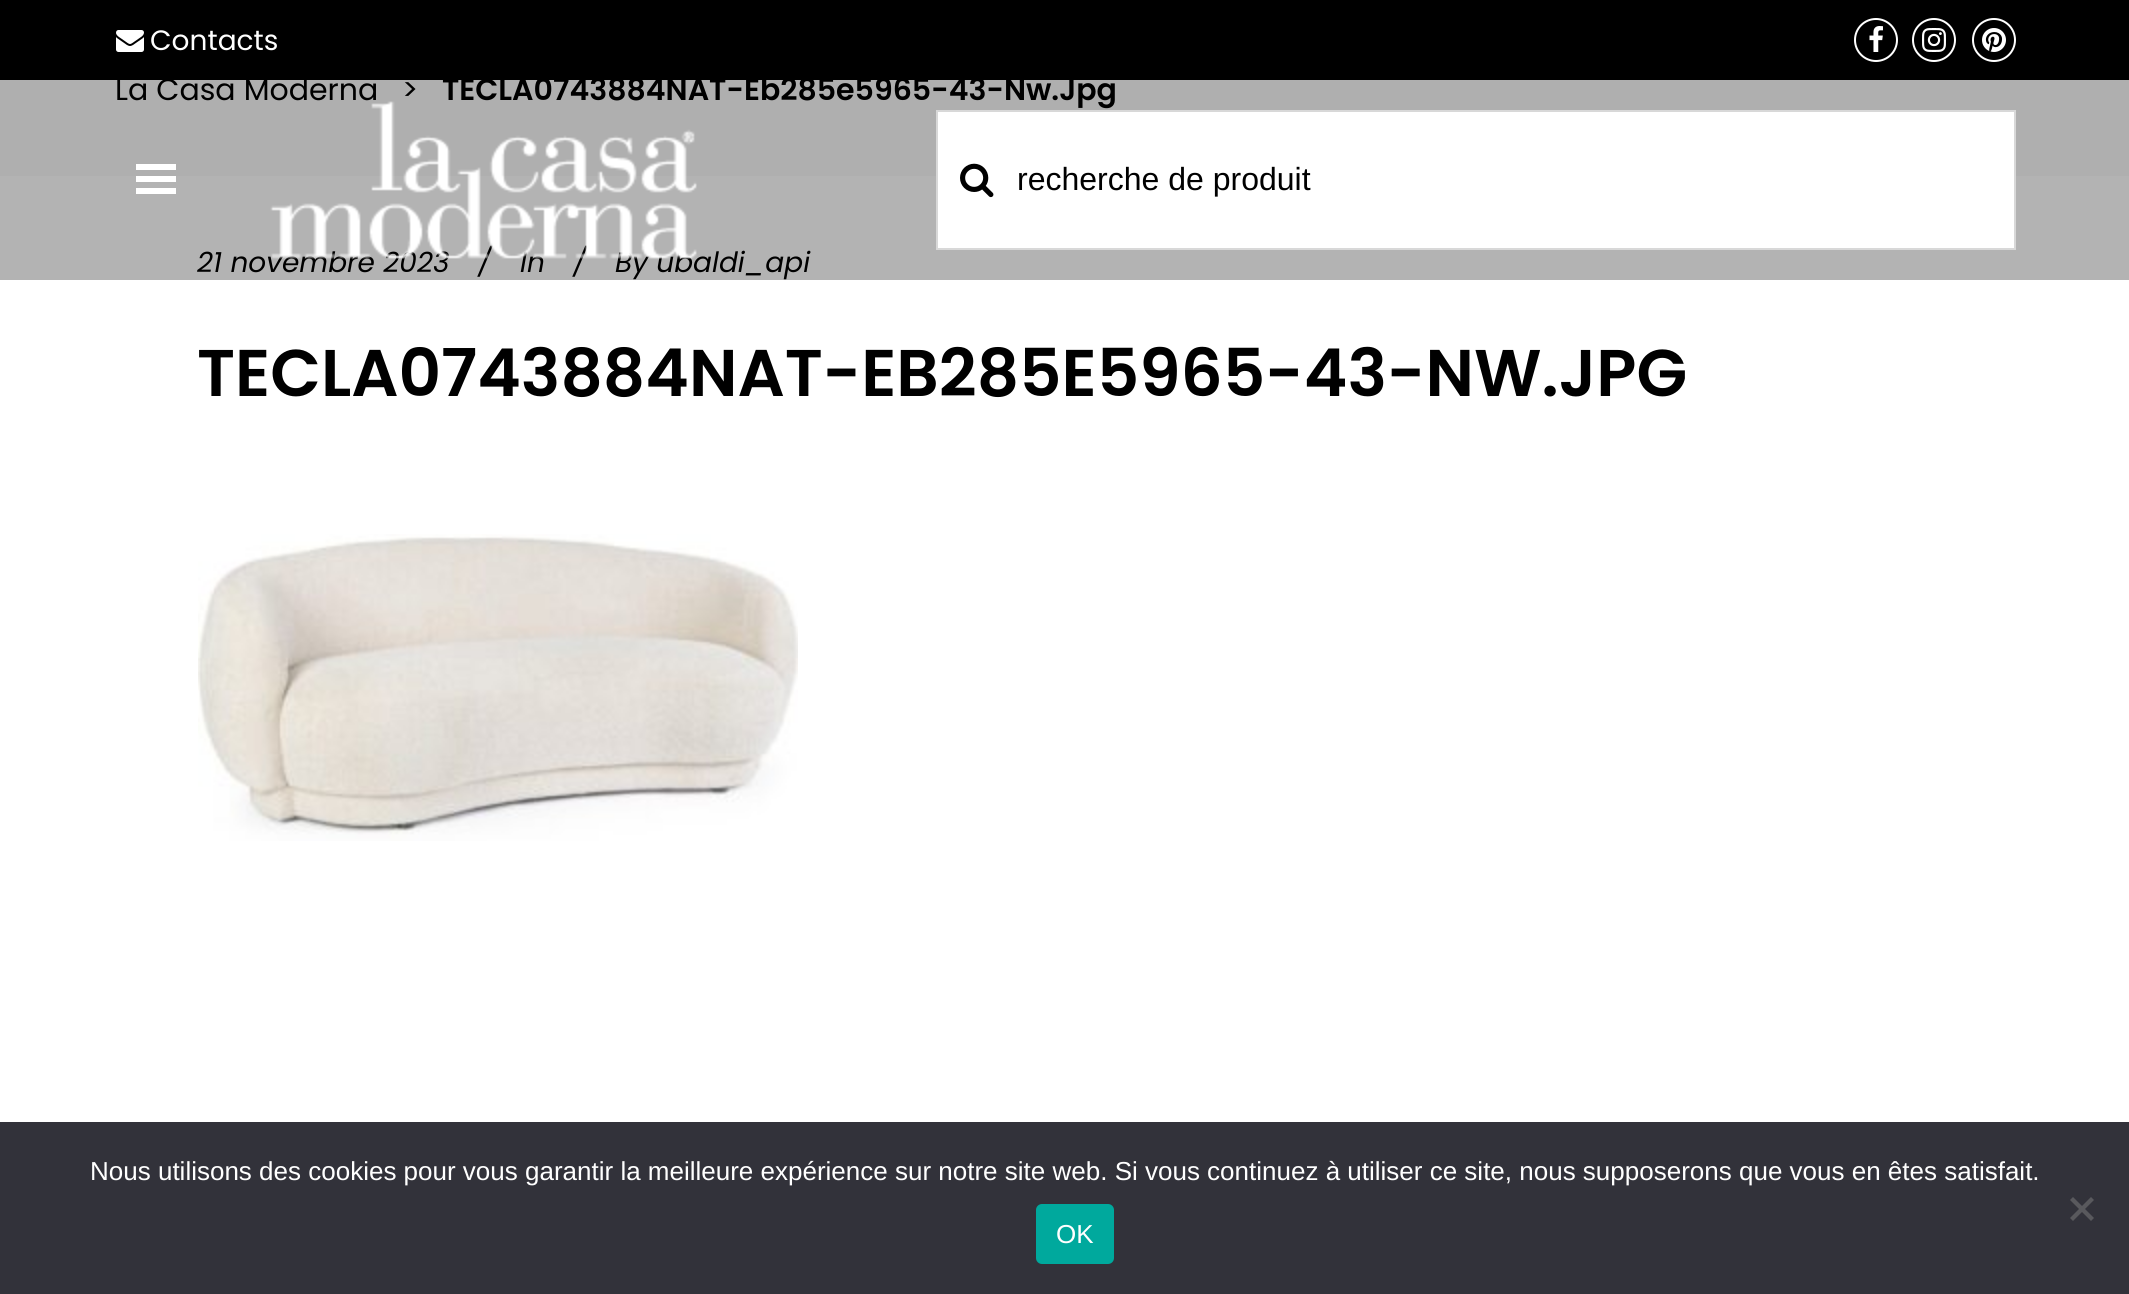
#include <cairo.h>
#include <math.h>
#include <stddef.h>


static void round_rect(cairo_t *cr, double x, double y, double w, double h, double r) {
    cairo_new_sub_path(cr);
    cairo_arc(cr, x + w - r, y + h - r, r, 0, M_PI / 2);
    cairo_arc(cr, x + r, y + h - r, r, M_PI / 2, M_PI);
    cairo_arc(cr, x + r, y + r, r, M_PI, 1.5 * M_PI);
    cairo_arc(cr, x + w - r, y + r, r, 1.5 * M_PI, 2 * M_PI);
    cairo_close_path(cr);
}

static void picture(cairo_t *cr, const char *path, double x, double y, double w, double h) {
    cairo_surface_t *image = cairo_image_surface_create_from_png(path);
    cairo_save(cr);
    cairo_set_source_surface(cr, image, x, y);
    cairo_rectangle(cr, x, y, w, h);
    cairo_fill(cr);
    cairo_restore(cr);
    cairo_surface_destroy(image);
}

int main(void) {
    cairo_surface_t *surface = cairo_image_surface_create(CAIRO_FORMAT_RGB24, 2129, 1294);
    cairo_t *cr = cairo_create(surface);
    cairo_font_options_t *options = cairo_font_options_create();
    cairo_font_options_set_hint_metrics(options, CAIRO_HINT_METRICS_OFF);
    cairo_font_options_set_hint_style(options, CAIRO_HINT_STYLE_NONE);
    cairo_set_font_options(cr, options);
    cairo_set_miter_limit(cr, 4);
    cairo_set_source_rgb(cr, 1, 1, 1);
    cairo_paint(cr);
    cairo_set_source_rgb(cr, 0, 0, 0);
    cairo_rectangle(cr, 0, 0, 2129, 80);
    cairo_fill(cr);
    picture(cr, "img1.png", 116, 30, 28, 22);
    cairo_select_font_face(cr, "Poppins", CAIRO_FONT_SLANT_NORMAL, CAIRO_FONT_WEIGHT_NORMAL);
    cairo_set_font_size(cr, 28);
    cairo_set_source_rgb(cr, 1, 1, 1);
    cairo_move_to(cr, 150, 50);
    cairo_show_text(cr, "Contacts");
    cairo_new_path(cr);
    cairo_arc(cr, 1876, 40, 21, 0, 2 * M_PI);
    cairo_stroke(cr);
    picture(cr, "img2.png", 1869, 26, 14, 26);
    cairo_arc(cr, 1934, 40, 21, 0, 2 * M_PI);
    cairo_stroke(cr);
    picture(cr, "img3.png", 1922, 28, 24, 24);
    cairo_arc(cr, 1994, 40, 21, 0, 2 * M_PI);
    cairo_stroke(cr);
    picture(cr, "img4.png", 1982, 28, 24, 24);
    cairo_set_source_rgb(cr, 0.973, 0.973, 0.973);
    cairo_rectangle(cr, 0, 80, 2129, 96);
    cairo_fill(cr);
    cairo_set_font_size(cr, 30);
    cairo_set_source_rgb(cr, 0, 0, 0);
    cairo_move_to(cr, 115, 100);
    cairo_show_text(cr, "La Casa Moderna");
    cairo_move_to(cr, 402, 100);
    cairo_show_text(cr, ">");
    cairo_select_font_face(cr, "Poppins SemiBold", CAIRO_FONT_SLANT_NORMAL, CAIRO_FONT_WEIGHT_NORMAL);
    cairo_move_to(cr, 442, 100);
    cairo_show_text(cr, "TECLA0743884NAT-Eb285e5965-43-Nw.Jpg");
    cairo_select_font_face(cr, "Poppins", CAIRO_FONT_SLANT_ITALIC, CAIRO_FONT_WEIGHT_NORMAL);
    cairo_set_font_size(cr, 28);
    cairo_move_to(cr, 197, 272);
    cairo_show_text(cr, "21 novembre 2023");
    cairo_move_to(cr, 478, 272);
    cairo_show_text(cr, "/");
    cairo_move_to(cr, 520, 272);
    cairo_show_text(cr, "In");
    cairo_move_to(cr, 573, 272);
    cairo_show_text(cr, "/");
    cairo_move_to(cr, 615, 272);
    cairo_show_text(cr, "By ubaldi_api");
    cairo_set_source_rgba(cr, 0, 0, 0, 0.3);
    cairo_rectangle(cr, 0, 80, 2129, 200);
    cairo_fill(cr);
    cairo_set_source_rgb(cr, 1, 1, 1);
    cairo_new_path(cr);
    cairo_move_to(cr, 176, 170);
    cairo_line_to(cr, 176, 164);
    cairo_line_to(cr, 136, 164);
    cairo_line_to(cr, 136, 170);
    cairo_close_path(cr);
    cairo_move_to(cr, 176, 182);
    cairo_line_to(cr, 176, 176);
    cairo_line_to(cr, 136, 176);
    cairo_line_to(cr, 136, 182);
    cairo_close_path(cr);
    cairo_move_to(cr, 176, 194);
    cairo_line_to(cr, 176, 188);
    cairo_line_to(cr, 136, 188);
    cairo_line_to(cr, 136, 194);
    cairo_close_path(cr);
    cairo_fill(cr);
    picture(cr, "img5.png", 270, 101, 427, 158);
    cairo_rectangle(cr, 937, 111, 1078, 138);
    cairo_fill_preserve(cr);
    cairo_set_source_rgb(cr, 0.847, 0.847, 0.847);
    cairo_stroke(cr);
    picture(cr, "img6.png", 960, 163, 34, 35);
    cairo_select_font_face(cr, "Liberation Sans", CAIRO_FONT_SLANT_NORMAL, CAIRO_FONT_WEIGHT_NORMAL);
    cairo_set_font_size(cr, 32);
    cairo_set_source_rgb(cr, 0, 0, 0);
    cairo_move_to(cr, 1017, 190);
    cairo_show_text(cr, "recherche de produit");
    cairo_select_font_face(cr, "Poppins SemiBold", CAIRO_FONT_SLANT_NORMAL, CAIRO_FONT_WEIGHT_NORMAL);
    cairo_set_font_size(cr, 66);
    cairo_move_to(cr, 197, 396);
    cairo_show_text(cr, "TECLA0743884NAT-EB285E5965-43-NW.JPG");
    picture(cr, "img7.png", 198, 534, 600, 307);
    cairo_set_source_rgb(cr, 0.196, 0.196, 0.227);
    cairo_rectangle(cr, 0, 1122, 2129, 172);
    cairo_fill(cr);
    cairo_select_font_face(cr, "Liberation Sans", CAIRO_FONT_SLANT_NORMAL, CAIRO_FONT_WEIGHT_NORMAL);
    cairo_set_font_size(cr, 26);
    cairo_set_source_rgb(cr, 1, 1, 1);
    cairo_move_to(cr, 90, 1180);
    cairo_show_text(cr, "Nous utilisons des cookies pour vous garantir la meilleure expérience sur notre site web. Si vous continuez à utiliser ce site, nous supposerons que vous en êtes satisfait.");
    cairo_set_source_rgb(cr, 0.349, 0.349, 0.365);
    cairo_new_path(cr);
    cairo_move_to(cr, 2091, 1197);
    cairo_line_to(cr, 2094, 1200);
    cairo_line_to(cr, 2073, 1221);
    cairo_line_to(cr, 2070, 1218);
    cairo_close_path(cr);
    cairo_fill(cr);
    cairo_new_path(cr);
    cairo_move_to(cr, 2070, 1200);
    cairo_line_to(cr, 2073, 1197);
    cairo_line_to(cr, 2094, 1218);
    cairo_line_to(cr, 2091, 1221);
    cairo_close_path(cr);
    cairo_fill(cr);
    cairo_set_source_rgb(cr, 0, 0.663, 0.616);
    round_rect(cr, 1036, 1204, 78, 60, 6);
    cairo_fill(cr);
    cairo_set_source_rgb(cr, 1, 1, 1);
    cairo_move_to(cr, 1056, 1243);
    cairo_show_text(cr, "OK");
    cairo_surface_write_to_png(surface, "page.png");
    cairo_font_options_destroy(options);
    cairo_destroy(cr);
    cairo_surface_destroy(surface);
    return 0;
}
